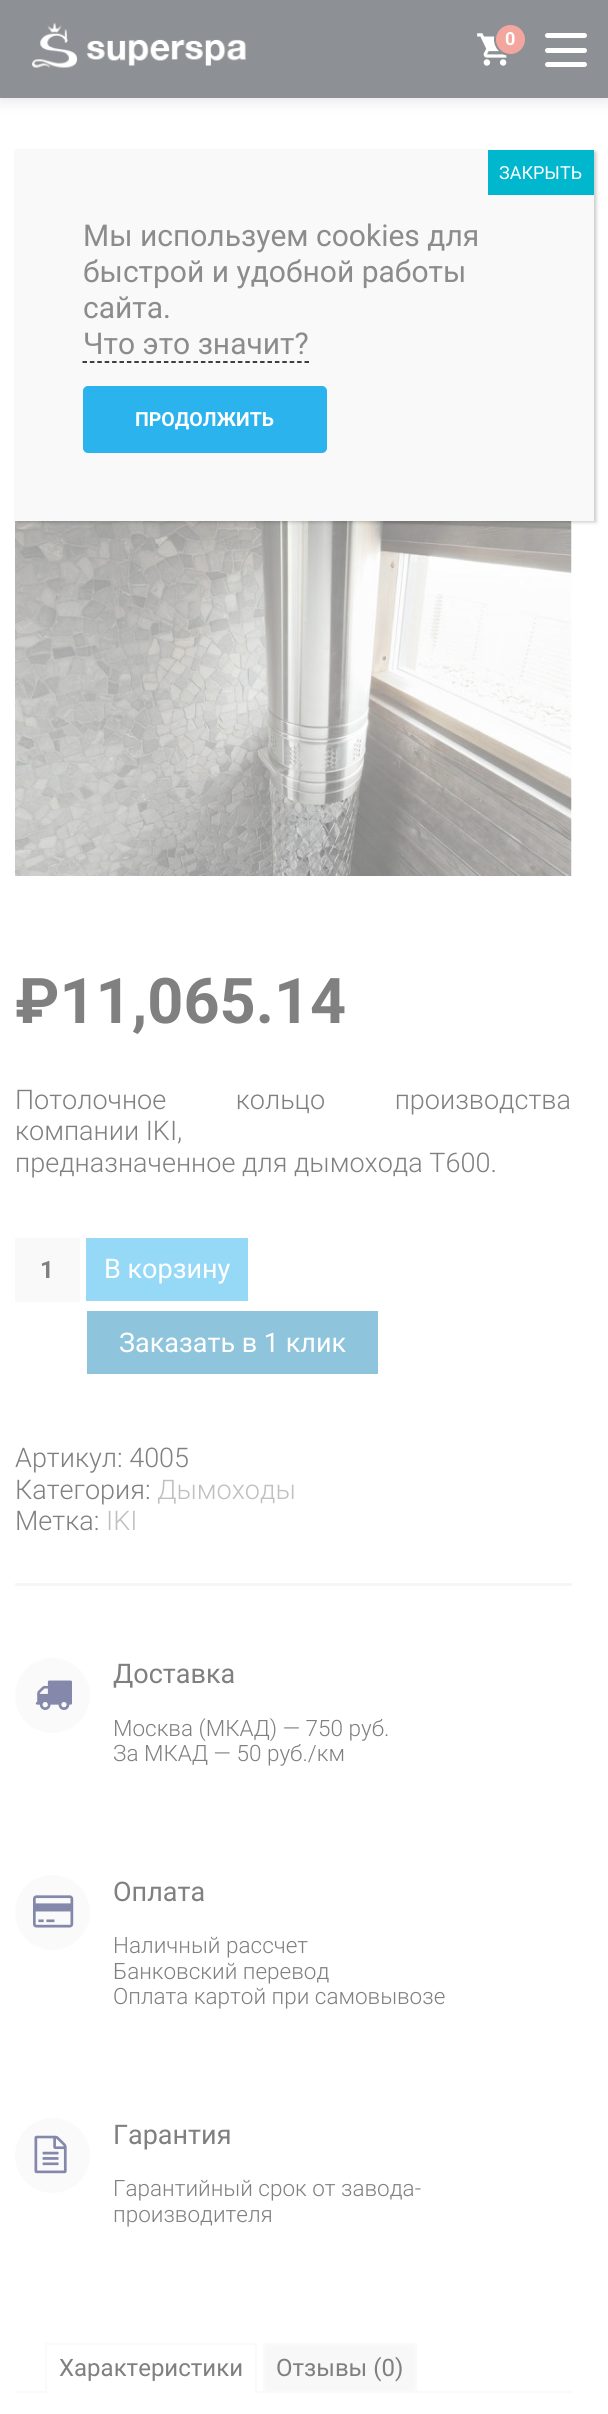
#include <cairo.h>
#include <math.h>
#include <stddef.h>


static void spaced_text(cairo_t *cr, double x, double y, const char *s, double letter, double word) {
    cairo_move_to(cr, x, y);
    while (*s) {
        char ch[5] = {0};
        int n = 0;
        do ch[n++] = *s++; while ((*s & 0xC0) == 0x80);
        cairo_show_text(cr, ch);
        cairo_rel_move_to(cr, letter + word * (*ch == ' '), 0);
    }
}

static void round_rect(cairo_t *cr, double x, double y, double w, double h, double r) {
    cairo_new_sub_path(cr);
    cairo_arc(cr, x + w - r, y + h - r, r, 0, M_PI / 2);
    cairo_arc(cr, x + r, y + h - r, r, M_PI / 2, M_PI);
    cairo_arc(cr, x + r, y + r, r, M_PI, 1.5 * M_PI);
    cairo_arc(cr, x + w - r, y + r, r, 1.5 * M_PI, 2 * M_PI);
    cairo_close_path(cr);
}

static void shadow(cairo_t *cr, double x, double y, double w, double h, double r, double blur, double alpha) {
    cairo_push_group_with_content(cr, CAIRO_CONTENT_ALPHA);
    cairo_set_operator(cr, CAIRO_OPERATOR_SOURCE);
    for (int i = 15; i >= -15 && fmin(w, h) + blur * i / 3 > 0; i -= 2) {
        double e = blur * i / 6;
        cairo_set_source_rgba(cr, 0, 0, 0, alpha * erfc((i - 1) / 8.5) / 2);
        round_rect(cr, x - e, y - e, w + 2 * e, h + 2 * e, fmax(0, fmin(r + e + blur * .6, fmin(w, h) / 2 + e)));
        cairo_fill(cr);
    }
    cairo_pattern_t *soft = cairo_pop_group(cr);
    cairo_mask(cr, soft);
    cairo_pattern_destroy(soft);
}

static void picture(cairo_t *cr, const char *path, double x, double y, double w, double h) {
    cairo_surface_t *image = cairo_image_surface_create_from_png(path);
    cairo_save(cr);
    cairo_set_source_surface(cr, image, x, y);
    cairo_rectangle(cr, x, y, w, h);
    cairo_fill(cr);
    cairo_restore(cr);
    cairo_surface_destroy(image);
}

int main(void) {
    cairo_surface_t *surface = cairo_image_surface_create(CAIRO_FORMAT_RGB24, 608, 2414);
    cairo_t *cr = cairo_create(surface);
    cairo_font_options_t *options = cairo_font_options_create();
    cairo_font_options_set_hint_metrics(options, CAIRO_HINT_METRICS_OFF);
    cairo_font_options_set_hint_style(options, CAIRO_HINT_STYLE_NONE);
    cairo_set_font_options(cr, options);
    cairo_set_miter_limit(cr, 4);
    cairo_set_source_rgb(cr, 1, 1, 1);
    cairo_paint(cr);
    cairo_set_source_rgb(cr, 0.502, 0.502, 0.502);
    shadow(cr, 0, 3, 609, 98, 0, 7.5, 0.2);
    cairo_set_source_rgb(cr, 0.553, 0.565, 0.58);
    cairo_rectangle(cr, 0, 0, 608, 98);
    cairo_fill(cr);
    picture(cr, "img1.png", 32, 22, 214, 46);
    picture(cr, "img2.png", 477, 33, 30, 33);
    cairo_set_source_rgb(cr, 0.953, 0.651, 0.62);
    cairo_arc(cr, 510.5, 39.5, 15.5, 0, 2 * M_PI);
    cairo_fill_preserve(cr);
    cairo_set_source_rgb(cr, 0.553, 0.565, 0.58);
    cairo_stroke(cr);
    cairo_select_font_face(cr, "Roboto", CAIRO_FONT_SLANT_NORMAL, CAIRO_FONT_WEIGHT_BOLD);
    cairo_set_font_size(cr, 18);
    cairo_set_source_rgb(cr, 1, 1, 1);
    cairo_move_to(cr, 505, 45);
    cairo_show_text(cr, "0");
    round_rect(cr, 545, 33, 42, 5, 2.5);
    cairo_fill(cr);
    round_rect(cr, 545, 48, 42, 5, 2.5);
    cairo_fill(cr);
    round_rect(cr, 545, 62, 42, 5, 2.5);
    cairo_fill(cr);
    picture(cr, "img3.png", 15, 521, 557, 355);
    cairo_set_source_rgb(cr, 0.008, 0.008, 0.008);
    shadow(cr, 17, 152, 579, 370, 0, 2, 0.23);
    cairo_set_source_rgb(cr, 0.976, 0.976, 0.976);
    cairo_rectangle(cr, 15, 150, 579, 371);
    cairo_fill(cr);
    cairo_set_source_rgb(cr, 0, 0.718, 0.804);
    cairo_rectangle(cr, 488, 150, 106, 45);
    cairo_fill(cr);
    cairo_select_font_face(cr, "Roboto", CAIRO_FONT_SLANT_NORMAL, CAIRO_FONT_WEIGHT_NORMAL);
    cairo_set_source_rgb(cr, 1, 1, 1);
    cairo_move_to(cr, 499, 179);
    cairo_show_text(cr, "ЗАКРЫТЬ");
    cairo_set_font_size(cr, 30);
    cairo_set_source_rgb(cr, 0.549, 0.549, 0.549);
    cairo_move_to(cr, 83, 246);
    cairo_show_text(cr, "Мы используем cookies для");
    cairo_move_to(cr, 83, 282);
    cairo_show_text(cr, "быстрой и удобной работы");
    cairo_move_to(cr, 83, 318);
    cairo_show_text(cr, "сайта.");
    cairo_new_path(cr);
    cairo_move_to(cr, 82.5, 362);
    cairo_line_to(cr, 309, 362);
    cairo_set_source_rgb(cr, 0, 0, 0);
    cairo_set_line_width(cr, 1.5);
    cairo_set_dash(cr, (double[]){4.5, 2.9}, 2, 0);
    cairo_stroke(cr);
    cairo_set_source_rgb(cr, 0.549, 0.549, 0.549);
    cairo_move_to(cr, 83, 354);
    cairo_show_text(cr, "Что это значит?");
    cairo_set_source_rgb(cr, 0.165, 0.702, 0.929);
    round_rect(cr, 83, 386, 244, 67, 5);
    cairo_fill(cr);
    cairo_select_font_face(cr, "Roboto", CAIRO_FONT_SLANT_NORMAL, CAIRO_FONT_WEIGHT_BOLD);
    cairo_set_font_size(cr, 19.5);
    cairo_set_source_rgb(cr, 1, 1, 1);
    cairo_move_to(cr, 135, 426);
    cairo_show_text(cr, "ПРОДОЛЖИТЬ");
    cairo_set_font_size(cr, 63);
    cairo_set_source_rgb(cr, 0.502, 0.502, 0.502);
    cairo_move_to(cr, 15, 1023);
    cairo_show_text(cr, "₽11,065.14");
    cairo_select_font_face(cr, "Roboto Light", CAIRO_FONT_SLANT_NORMAL, CAIRO_FONT_WEIGHT_NORMAL);
    cairo_set_font_size(cr, 27);
    spaced_text(cr, 15, 1109, "Потолочное кольцо производства", 0, 63);
    cairo_move_to(cr, 15, 1140);
    cairo_show_text(cr, "компании IKI,");
    cairo_move_to(cr, 15, 1172);
    cairo_show_text(cr, "предназначенное для дымохода T600.");
    cairo_set_source_rgb(cr, 0.976, 0.976, 0.976);
    cairo_rectangle(cr, 15, 1238, 65, 64);
    cairo_fill(cr);
    cairo_select_font_face(cr, "Roboto", CAIRO_FONT_SLANT_NORMAL, CAIRO_FONT_WEIGHT_BOLD);
    cairo_set_font_size(cr, 24);
    cairo_set_source_rgb(cr, 0.502, 0.502, 0.502);
    cairo_move_to(cr, 40, 1278);
    cairo_show_text(cr, "1");
    cairo_set_source_rgb(cr, 0.584, 0.851, 0.965);
    cairo_rectangle(cr, 86, 1238, 162, 63);
    cairo_fill(cr);
    cairo_select_font_face(cr, "Roboto", CAIRO_FONT_SLANT_NORMAL, CAIRO_FONT_WEIGHT_NORMAL);
    cairo_set_font_size(cr, 27);
    cairo_set_source_rgb(cr, 1, 1, 1);
    cairo_move_to(cr, 104, 1278);
    cairo_show_text(cr, "В корзину");
    cairo_set_source_rgb(cr, 0.561, 0.773, 0.863);
    cairo_rectangle(cr, 87, 1311, 291, 63);
    cairo_fill(cr);
    cairo_set_source_rgb(cr, 1, 1, 1);
    cairo_move_to(cr, 119, 1352);
    cairo_show_text(cr, "Заказать в 1 клик");
    cairo_select_font_face(cr, "Roboto Light", CAIRO_FONT_SLANT_NORMAL, CAIRO_FONT_WEIGHT_NORMAL);
    cairo_set_source_rgb(cr, 0.502, 0.502, 0.502);
    cairo_move_to(cr, 15, 1467);
    cairo_show_text(cr, "Артикул: 4005");
    cairo_move_to(cr, 15, 1499);
    cairo_show_text(cr, "Категория:");
    cairo_set_source_rgb(cr, 0.753, 0.753, 0.753);
    cairo_move_to(cr, 157, 1499);
    cairo_show_text(cr, "Дымоходы");
    cairo_set_source_rgb(cr, 0.502, 0.502, 0.502);
    cairo_move_to(cr, 15, 1530);
    cairo_show_text(cr, "Метка:");
    cairo_set_source_rgb(cr, 0.753, 0.753, 0.753);
    cairo_move_to(cr, 106, 1530);
    cairo_show_text(cr, "IKI");
    cairo_set_source_rgb(cr, 0.961, 0.961, 0.961);
    cairo_rectangle(cr, 15, 1583, 557, 3);
    cairo_fill(cr);
    cairo_set_source_rgb(cr, 0.98, 0.98, 0.98);
    cairo_arc(cr, 52.5, 1695.5, 37.5, 0, 2 * M_PI);
    cairo_fill(cr);
    picture(cr, "img4.png", 35, 1680, 37, 30);
    cairo_select_font_face(cr, "Roboto", CAIRO_FONT_SLANT_NORMAL, CAIRO_FONT_WEIGHT_NORMAL);
    cairo_set_source_rgb(cr, 0.502, 0.502, 0.502);
    cairo_move_to(cr, 113, 1683);
    cairo_show_text(cr, "Доставка");
    cairo_select_font_face(cr, "Roboto Light", CAIRO_FONT_SLANT_NORMAL, CAIRO_FONT_WEIGHT_NORMAL);
    cairo_set_font_size(cr, 22.5);
    cairo_move_to(cr, 113, 1736);
    cairo_show_text(cr, "Москва (МКАД) — 750 руб.");
    cairo_move_to(cr, 113, 1761);
    cairo_show_text(cr, "За МКАД — 50 руб./км");
    cairo_set_source_rgb(cr, 0.98, 0.98, 0.98);
    cairo_new_path(cr);
    cairo_arc(cr, 52.5, 1912.5, 37.5, 0, 2 * M_PI);
    cairo_fill(cr);
    picture(cr, "img5.png", 33, 1895, 41, 33);
    cairo_select_font_face(cr, "Roboto", CAIRO_FONT_SLANT_NORMAL, CAIRO_FONT_WEIGHT_NORMAL);
    cairo_set_font_size(cr, 27);
    cairo_set_source_rgb(cr, 0.502, 0.502, 0.502);
    cairo_move_to(cr, 113, 1901);
    cairo_show_text(cr, "Оплата");
    cairo_select_font_face(cr, "Roboto Light", CAIRO_FONT_SLANT_NORMAL, CAIRO_FONT_WEIGHT_NORMAL);
    cairo_set_font_size(cr, 22.5);
    cairo_move_to(cr, 113, 1953);
    cairo_show_text(cr, "Наличный рассчет");
    cairo_move_to(cr, 113, 1979);
    cairo_show_text(cr, "Банковский перевод");
    cairo_move_to(cr, 113, 2004);
    cairo_show_text(cr, "Оплата картой при самовывозе");
    cairo_set_source_rgb(cr, 0.98, 0.98, 0.98);
    cairo_new_path(cr);
    cairo_arc(cr, 52.5, 2155.5, 37.5, 0, 2 * M_PI);
    cairo_fill(cr);
    picture(cr, "img6.png", 34, 2135, 33, 39);
    cairo_select_font_face(cr, "Roboto", CAIRO_FONT_SLANT_NORMAL, CAIRO_FONT_WEIGHT_NORMAL);
    cairo_set_font_size(cr, 27);
    cairo_set_source_rgb(cr, 0.502, 0.502, 0.502);
    cairo_move_to(cr, 113, 2144);
    cairo_show_text(cr, "Гарантия");
    cairo_select_font_face(cr, "Roboto Light", CAIRO_FONT_SLANT_NORMAL, CAIRO_FONT_WEIGHT_NORMAL);
    cairo_set_font_size(cr, 22.5);
    cairo_move_to(cr, 113, 2196);
    cairo_show_text(cr, "Гарантийный срок от завода-");
    cairo_move_to(cr, 113, 2222);
    cairo_show_text(cr, "производителя");
    cairo_set_source_rgb(cr, 0.98, 0.98, 0.98);
    cairo_rectangle(cr, 15, 2391, 557, 2);
    cairo_fill(cr);
    cairo_set_source_rgb(cr, 1, 1, 1);
    cairo_rectangle(cr, 47, 2391, 208, 2);
    cairo_fill(cr);
    cairo_set_source_rgb(cr, 0.98, 0.98, 0.98);
    cairo_rectangle(cr, 45, 2343, 212, 2);
    cairo_fill(cr);
    cairo_rectangle(cr, 255, 2343, 2, 50);
    cairo_fill(cr);
    cairo_rectangle(cr, 45, 2343, 2, 50);
    cairo_fill(cr);
    cairo_select_font_face(cr, "Roboto", CAIRO_FONT_SLANT_NORMAL, CAIRO_FONT_WEIGHT_NORMAL);
    cairo_set_font_size(cr, 24);
    cairo_set_source_rgb(cr, 0.502, 0.502, 0.502);
    cairo_move_to(cr, 59, 2376);
    cairo_show_text(cr, "Характеристики");
    cairo_set_source_rgb(cr, 0.969, 0.969, 0.969);
    cairo_rectangle(cr, 264, 2344, 152, 48);
    cairo_fill_preserve(cr);
    cairo_set_source_rgb(cr, 0.98, 0.98, 0.98);
    cairo_set_line_width(cr, 2);
    cairo_set_dash(cr, NULL, 0, 0);
    cairo_stroke(cr);
    cairo_set_source_rgb(cr, 0.502, 0.502, 0.502);
    cairo_move_to(cr, 276, 2376);
    cairo_show_text(cr, "Отзывы (0)");
    cairo_surface_write_to_png(surface, "page.png");
    cairo_font_options_destroy(options);
    cairo_destroy(cr);
    cairo_surface_destroy(surface);
    return 0;
}
